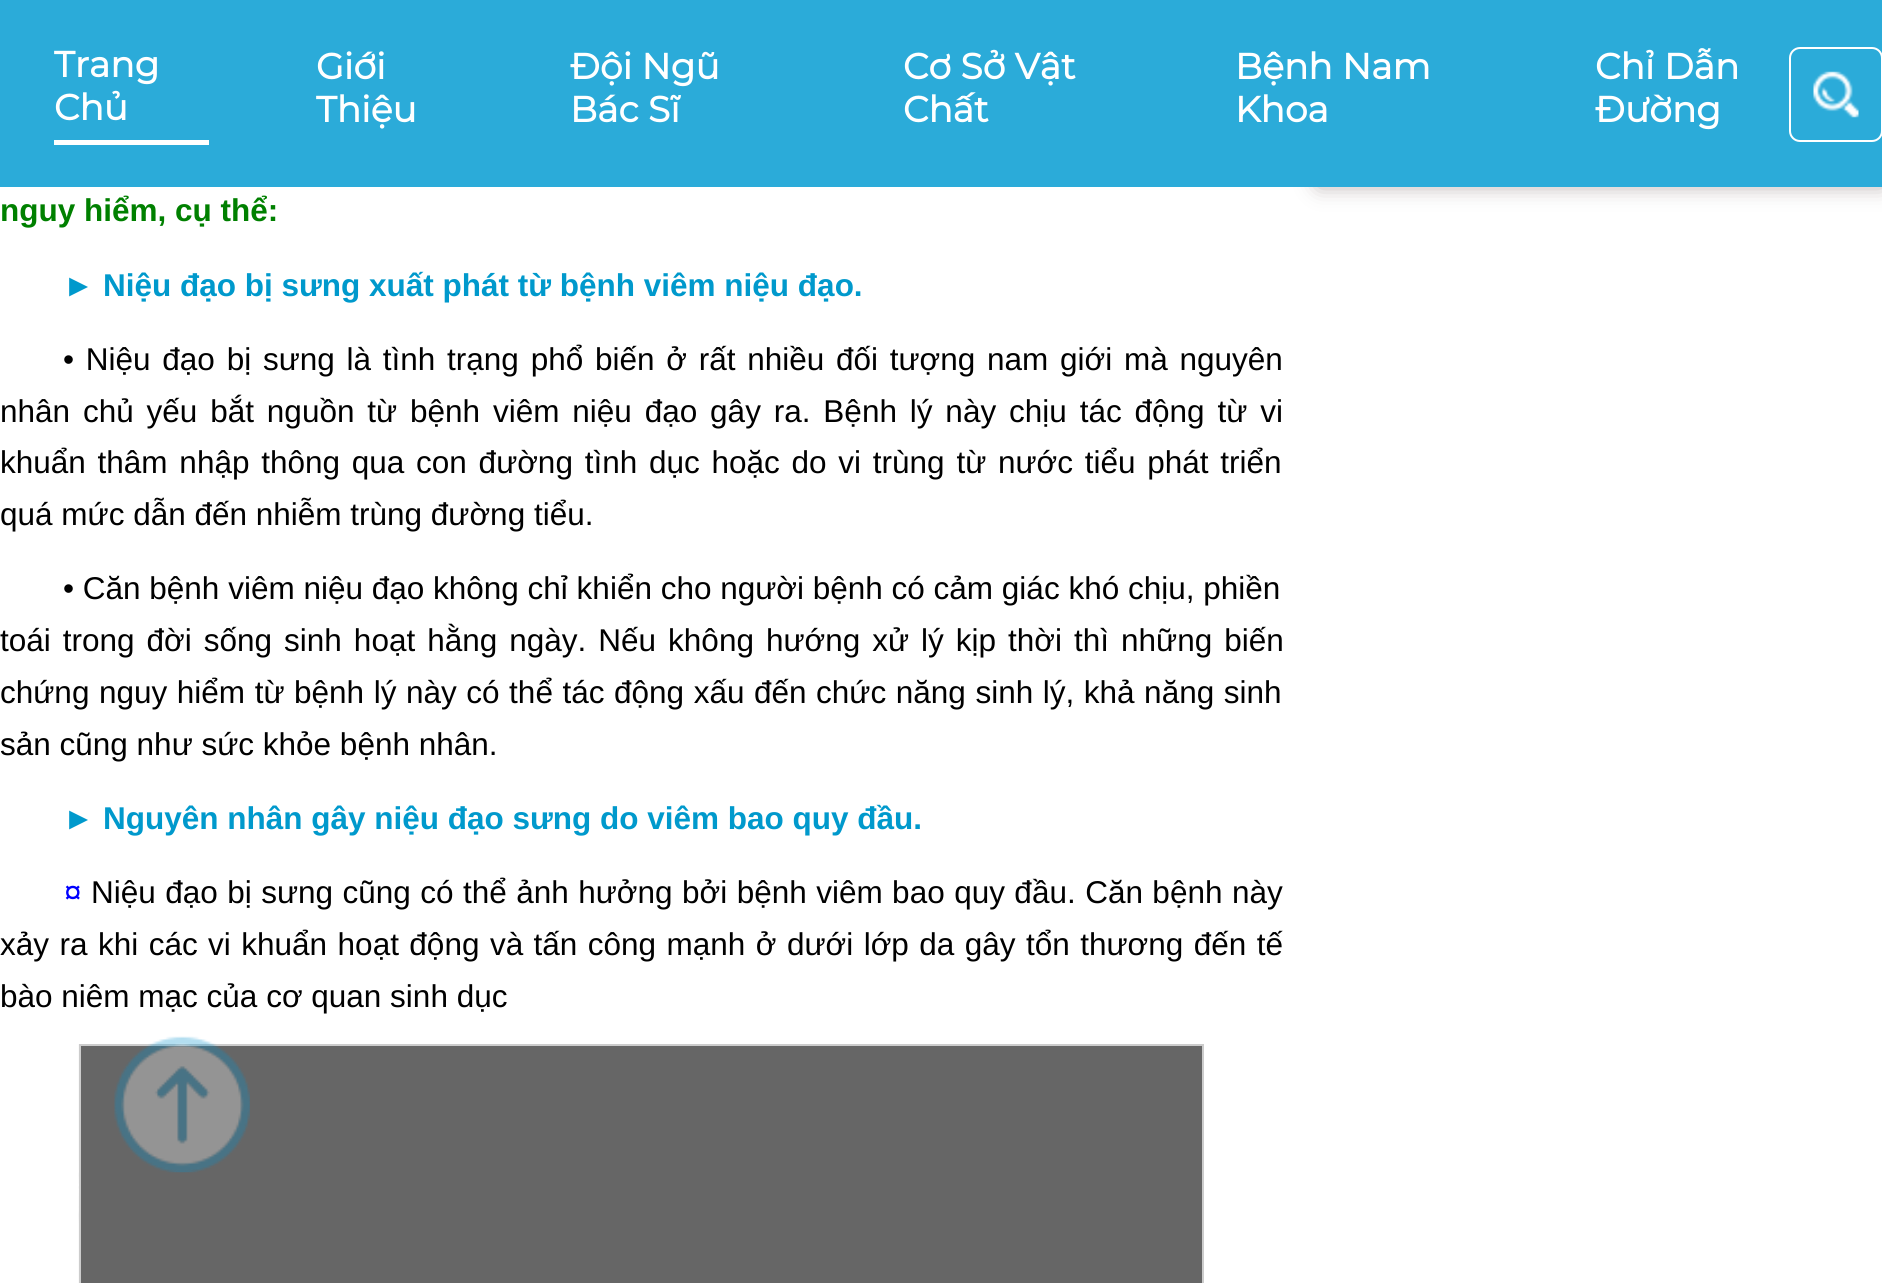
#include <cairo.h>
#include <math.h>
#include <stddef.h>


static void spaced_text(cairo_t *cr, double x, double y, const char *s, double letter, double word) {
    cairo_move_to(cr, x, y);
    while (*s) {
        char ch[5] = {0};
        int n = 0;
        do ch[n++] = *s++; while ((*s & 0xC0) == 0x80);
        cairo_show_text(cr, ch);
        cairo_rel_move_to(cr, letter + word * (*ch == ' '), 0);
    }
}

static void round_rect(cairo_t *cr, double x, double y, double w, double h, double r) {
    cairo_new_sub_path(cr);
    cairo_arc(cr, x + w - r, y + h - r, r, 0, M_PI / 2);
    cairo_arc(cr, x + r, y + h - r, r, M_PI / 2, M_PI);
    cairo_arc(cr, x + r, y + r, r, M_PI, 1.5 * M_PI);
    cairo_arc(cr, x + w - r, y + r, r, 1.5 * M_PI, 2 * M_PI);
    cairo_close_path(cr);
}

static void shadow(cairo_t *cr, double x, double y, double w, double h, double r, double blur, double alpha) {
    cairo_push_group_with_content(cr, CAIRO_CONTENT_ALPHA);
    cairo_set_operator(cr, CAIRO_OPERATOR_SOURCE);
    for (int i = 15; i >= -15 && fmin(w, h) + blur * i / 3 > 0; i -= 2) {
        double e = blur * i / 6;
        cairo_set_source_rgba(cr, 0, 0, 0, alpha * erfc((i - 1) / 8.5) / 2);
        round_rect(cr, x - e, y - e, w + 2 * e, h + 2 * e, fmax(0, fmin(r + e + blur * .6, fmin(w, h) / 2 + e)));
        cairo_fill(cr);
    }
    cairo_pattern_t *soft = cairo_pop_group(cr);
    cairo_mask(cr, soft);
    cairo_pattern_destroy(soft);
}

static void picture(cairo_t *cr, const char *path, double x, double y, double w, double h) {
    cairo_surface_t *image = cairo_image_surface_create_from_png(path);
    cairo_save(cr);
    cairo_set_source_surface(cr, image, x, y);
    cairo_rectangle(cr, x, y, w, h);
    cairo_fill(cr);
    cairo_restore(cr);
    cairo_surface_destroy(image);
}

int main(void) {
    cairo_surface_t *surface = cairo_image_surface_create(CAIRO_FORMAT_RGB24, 1882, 1283);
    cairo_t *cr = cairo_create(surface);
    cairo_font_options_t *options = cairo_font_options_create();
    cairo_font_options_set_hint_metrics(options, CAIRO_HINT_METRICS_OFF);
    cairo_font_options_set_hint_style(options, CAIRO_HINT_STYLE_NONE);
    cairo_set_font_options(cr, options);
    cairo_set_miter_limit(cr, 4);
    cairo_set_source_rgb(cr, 1, 1, 1);
    cairo_paint(cr);
    cairo_set_source_rgb(cr, 0.694, 0.651, 0.651);
    shadow(cr, 1319, -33, 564, 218, 0, 11, 1);
    cairo_set_source_rgb(cr, 0.169, 0.671, 0.851);
    cairo_rectangle(cr, 0, 0, 1882, 187);
    cairo_fill(cr);
    cairo_set_source_rgb(cr, 1, 1, 1);
    cairo_rectangle(cr, 54, 140, 155, 5);
    cairo_fill(cr);
    cairo_select_font_face(cr, "Montserrat", CAIRO_FONT_SLANT_NORMAL, CAIRO_FONT_WEIGHT_BOLD);
    cairo_set_font_size(cr, 36);
    cairo_move_to(cr, 54, 77);
    cairo_show_text(cr, "Trang");
    cairo_move_to(cr, 54, 120);
    cairo_show_text(cr, "Chủ");
    cairo_move_to(cr, 316, 79);
    cairo_show_text(cr, "Giới");
    cairo_move_to(cr, 316, 122);
    cairo_show_text(cr, "Thiệu");
    cairo_move_to(cr, 570, 79);
    cairo_show_text(cr, "Đội Ngũ");
    cairo_move_to(cr, 570, 122);
    cairo_show_text(cr, "Bác Sĩ");
    cairo_move_to(cr, 903, 79);
    cairo_show_text(cr, "Cơ Sở Vật");
    cairo_move_to(cr, 903, 122);
    cairo_show_text(cr, "Chất");
    cairo_move_to(cr, 1235, 79);
    cairo_show_text(cr, "Bệnh Nam");
    cairo_move_to(cr, 1235, 122);
    cairo_show_text(cr, "Khoa");
    cairo_move_to(cr, 1595, 79);
    cairo_show_text(cr, "Chỉ Dẫn");
    cairo_move_to(cr, 1595, 122);
    cairo_show_text(cr, "Đường");
    round_rect(cr, 1790, 48, 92, 93, 10);
    cairo_stroke(cr);
    picture(cr, "img1.png", 1813, 71, 46, 47);
    cairo_select_font_face(cr, "Liberation Sans", CAIRO_FONT_SLANT_NORMAL, CAIRO_FONT_WEIGHT_BOLD);
    cairo_set_font_size(cr, 31.5);
    cairo_set_source_rgb(cr, 0, 0.502, 0);
    cairo_move_to(cr, 0, 221);
    cairo_show_text(cr, "nguy hiểm, cụ thể:");
    cairo_set_source_rgb(cr, 0, 0.6, 0.8);
    cairo_move_to(cr, 63, 296);
    cairo_show_text(cr, "► Niệu đạo bị sưng xuất phát từ bệnh viêm niệu đạo.");
    cairo_select_font_face(cr, "Liberation Sans", CAIRO_FONT_SLANT_NORMAL, CAIRO_FONT_WEIGHT_NORMAL);
    cairo_set_source_rgb(cr, 0, 0, 0);
    spaced_text(cr, 63, 370, "• Niệu đạo bị sưng là tình trạng phổ biến ở rất nhiều đối tượng nam giới mà nguyên", 0, 3);
    spaced_text(cr, 0, 422, "nhân chủ yếu bắt nguồn từ bệnh viêm niệu đạo gây ra. Bệnh lý này chịu tác động từ vi", 0, 4.1);
    spaced_text(cr, 0, 473, "khuẩn thâm nhập thông qua con đường tình dục hoặc do vi trùng từ nước tiểu phát triển", 0, 3);
    cairo_move_to(cr, 0, 525);
    cairo_show_text(cr, "quá mức dẫn đến nhiễm trùng đường tiểu.");
    cairo_move_to(cr, 63, 599);
    cairo_show_text(cr, "• Căn bệnh viêm niệu đạo không chỉ khiển cho người bệnh có cảm giác khó chịu, phiền");
    spaced_text(cr, 0, 651, "toái trong đời sống sinh hoạt hằng ngày. Nếu không hướng xử lý kịp thời thì những biến", 0, 3.25);
    spaced_text(cr, 0, 703, "chứng nguy hiểm từ bệnh lý này có thể tác động xấu đến chức năng sinh lý, khả năng sinh", 0, 0.8);
    cairo_move_to(cr, 0, 755);
    cairo_show_text(cr, "sản cũng như sức khỏe bệnh nhân.");
    cairo_select_font_face(cr, "Liberation Sans", CAIRO_FONT_SLANT_NORMAL, CAIRO_FONT_WEIGHT_BOLD);
    cairo_set_source_rgb(cr, 0, 0.6, 0.8);
    cairo_move_to(cr, 63, 829);
    cairo_show_text(cr, "► Nguyên nhân gây niệu đạo sưng do viêm bao quy đầu.");
    cairo_select_font_face(cr, "Liberation Sans", CAIRO_FONT_SLANT_NORMAL, CAIRO_FONT_WEIGHT_NORMAL);
    cairo_set_source_rgb(cr, 0, 0, 1);
    cairo_move_to(cr, 64, 903);
    cairo_show_text(cr, "¤");
    cairo_set_source_rgb(cr, 0, 0, 0);
    spaced_text(cr, 91, 903, "Niệu đạo bị sưng cũng có thể ảnh hưởng bởi bệnh viêm bao quy đầu. Căn bệnh này", 0, 0.7);
    spaced_text(cr, 0, 955, "xảy ra khi các vi khuẩn hoạt động và tấn công mạnh ở dưới lớp da gây tổn thương đến tế", 0, 1.7);
    cairo_move_to(cr, 0, 1007);
    cairo_show_text(cr, "bào niêm mạc của cơ quan sinh dục");
    picture(cr, "img2.png", 78, 1044, 1, 239);
    cairo_set_source_rgb(cr, 0.4, 0.4, 0.4);
    cairo_rectangle(cr, 80, 1045, 1123, 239);
    cairo_fill_preserve(cr);
    cairo_set_source_rgb(cr, 0.8, 0.8, 0.8);
    cairo_stroke(cr);
    picture(cr, "img3.png", 114, 1036, 136, 137);
    cairo_surface_write_to_png(surface, "page.png");
    cairo_font_options_destroy(options);
    cairo_destroy(cr);
    cairo_surface_destroy(surface);
    return 0;
}
